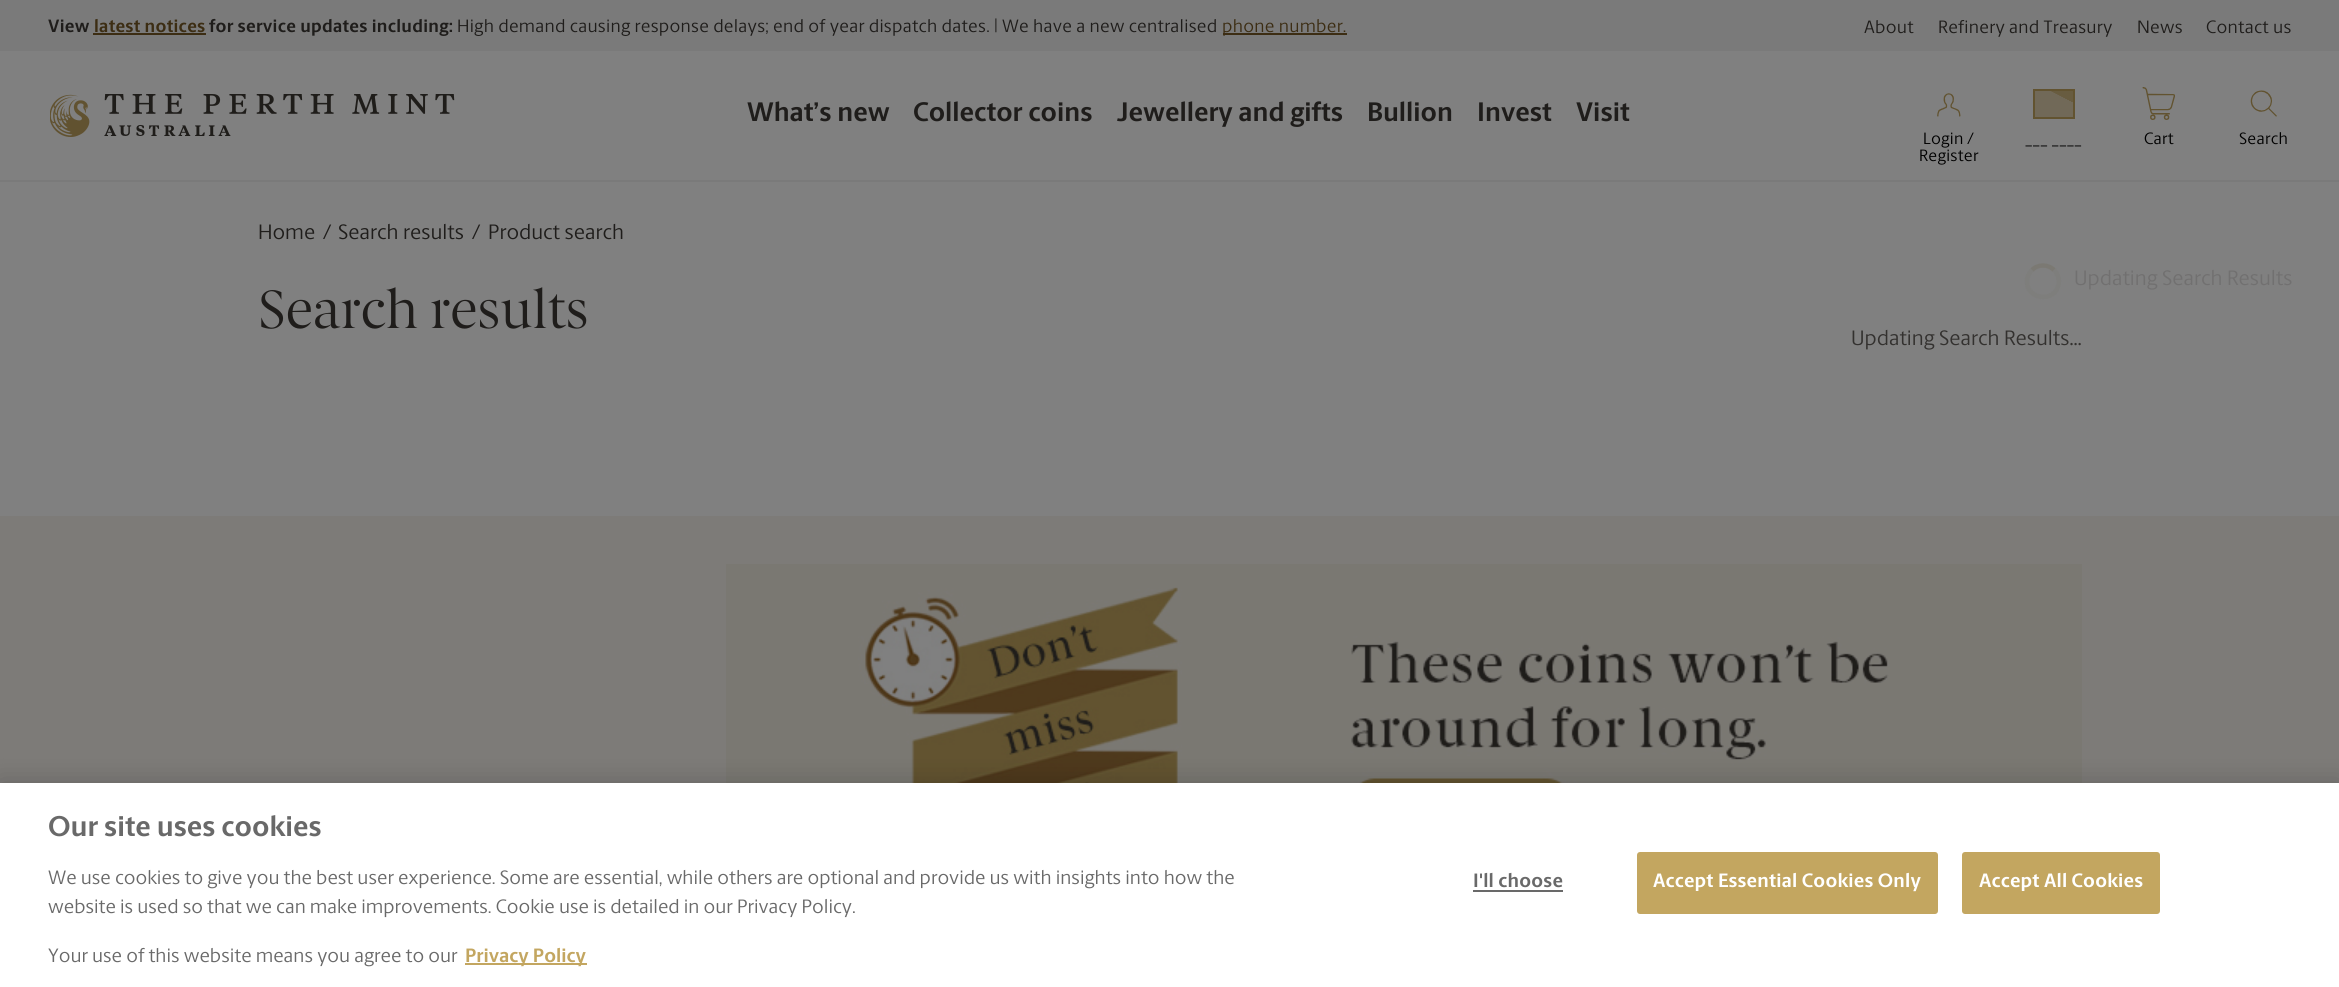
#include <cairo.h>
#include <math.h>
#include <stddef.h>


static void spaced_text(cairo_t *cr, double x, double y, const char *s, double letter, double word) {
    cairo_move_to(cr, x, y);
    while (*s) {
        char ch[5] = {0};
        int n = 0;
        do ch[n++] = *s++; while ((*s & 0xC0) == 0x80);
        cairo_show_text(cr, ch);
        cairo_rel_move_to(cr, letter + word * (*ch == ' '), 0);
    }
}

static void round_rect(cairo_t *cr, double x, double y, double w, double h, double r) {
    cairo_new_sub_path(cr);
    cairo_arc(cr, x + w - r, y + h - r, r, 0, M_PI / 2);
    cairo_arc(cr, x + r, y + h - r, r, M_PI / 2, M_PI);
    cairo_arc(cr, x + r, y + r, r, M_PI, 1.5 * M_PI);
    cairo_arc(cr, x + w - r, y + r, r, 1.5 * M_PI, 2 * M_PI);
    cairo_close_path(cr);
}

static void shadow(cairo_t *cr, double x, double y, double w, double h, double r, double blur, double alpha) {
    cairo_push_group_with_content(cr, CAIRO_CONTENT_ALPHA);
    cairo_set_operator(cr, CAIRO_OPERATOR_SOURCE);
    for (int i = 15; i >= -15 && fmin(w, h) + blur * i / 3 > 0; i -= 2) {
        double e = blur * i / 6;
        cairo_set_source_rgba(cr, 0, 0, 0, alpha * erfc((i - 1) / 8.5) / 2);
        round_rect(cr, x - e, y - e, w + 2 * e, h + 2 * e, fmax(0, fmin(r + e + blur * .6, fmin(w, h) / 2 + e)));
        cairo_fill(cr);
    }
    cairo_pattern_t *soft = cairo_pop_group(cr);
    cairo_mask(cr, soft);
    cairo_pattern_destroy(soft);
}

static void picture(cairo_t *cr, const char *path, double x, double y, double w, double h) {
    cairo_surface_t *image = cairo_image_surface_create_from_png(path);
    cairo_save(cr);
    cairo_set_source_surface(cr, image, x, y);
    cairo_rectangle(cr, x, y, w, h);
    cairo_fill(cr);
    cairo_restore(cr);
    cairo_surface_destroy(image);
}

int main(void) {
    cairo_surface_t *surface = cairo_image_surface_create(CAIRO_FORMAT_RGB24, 2339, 987);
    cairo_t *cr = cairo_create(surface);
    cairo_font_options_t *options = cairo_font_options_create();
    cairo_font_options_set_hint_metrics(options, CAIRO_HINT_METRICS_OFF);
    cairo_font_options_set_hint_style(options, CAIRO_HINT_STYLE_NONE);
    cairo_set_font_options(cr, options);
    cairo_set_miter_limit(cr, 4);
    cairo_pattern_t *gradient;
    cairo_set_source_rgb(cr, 0.502, 0.502, 0.502);
    cairo_paint(cr);
    cairo_set_source_rgb(cr, 0.478, 0.478, 0.478);
    cairo_rectangle(cr, 0, 180, 2339, 2);
    cairo_fill(cr);
    cairo_rectangle(cr, 0, 0, 2339, 51);
    cairo_fill(cr);
    cairo_select_font_face(cr, "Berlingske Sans", CAIRO_FONT_SLANT_NORMAL, CAIRO_FONT_WEIGHT_BOLD);
    cairo_set_font_size(cr, 18);
    cairo_set_source_rgb(cr, 0.122, 0.114, 0.106);
    spaced_text(cr, 48, 32, "View", 0.25, 0);
    cairo_set_source_rgb(cr, 0.235, 0.176, 0.075);
    spaced_text(cr, 94, 32, "latest notices", 0.25, 0);
    cairo_rectangle(cr, 93, 33, 113, 2);
    cairo_fill(cr);
    cairo_set_source_rgb(cr, 0.122, 0.114, 0.106);
    spaced_text(cr, 209, 32, "for service updates including:", 0.25, 0);
    cairo_select_font_face(cr, "Berlingske Sans", CAIRO_FONT_SLANT_NORMAL, CAIRO_FONT_WEIGHT_NORMAL);
    spaced_text(cr, 457, 32, "High demand causing response delays; end of year dispatch dates. | We have a new centralised", 0.25, 0);
    cairo_set_source_rgb(cr, 0.235, 0.176, 0.075);
    cairo_rectangle(cr, 1223, 33, 124, 2);
    cairo_fill(cr);
    spaced_text(cr, 1222, 32, "phone number.", 0.25, 0);
    cairo_set_source_rgb(cr, 0.122, 0.114, 0.106);
    spaced_text(cr, 1864, 33, "About", 0.25, 0);
    spaced_text(cr, 1938, 33, "Refinery and Treasury", 0.25, 0);
    spaced_text(cr, 2137, 33, "News", 0.25, 0);
    spaced_text(cr, 2206, 33, "Contact us", 0.25, 0);
    picture(cr, "img1.png", 50, 94, 405, 43);
    cairo_select_font_face(cr, "Berlingske Sans", CAIRO_FONT_SLANT_NORMAL, CAIRO_FONT_WEIGHT_BOLD);
    cairo_set_font_size(cr, 27);
    cairo_move_to(cr, 747, 121);
    cairo_show_text(cr, "What’s new");
    cairo_move_to(cr, 913, 121);
    cairo_show_text(cr, "Collector coins");
    cairo_move_to(cr, 1117, 121);
    cairo_show_text(cr, "Jewellery and gifts");
    cairo_move_to(cr, 1367, 121);
    cairo_show_text(cr, "Bullion");
    cairo_move_to(cr, 1477, 121);
    cairo_show_text(cr, "Invest");
    cairo_move_to(cr, 1576, 121);
    cairo_show_text(cr, "Visit");
    picture(cr, "img2.png", 1937, 93, 24, 24);
    cairo_select_font_face(cr, "Berlingske Sans", CAIRO_FONT_SLANT_NORMAL, CAIRO_FONT_WEIGHT_NORMAL);
    cairo_set_font_size(cr, 16.5);
    cairo_set_source_rgb(cr, 0, 0, 0);
    spaced_text(cr, 1923, 144, "Login /", 0.25, 0);
    spaced_text(cr, 1919, 161, "Register", 0.25, 0);
    picture(cr, "img3.png", 2142, 87, 33, 33);
    spaced_text(cr, 2144, 144, "Cart", 0.25, 0);
    picture(cr, "img4.png", 2250, 90, 27, 27);
    spaced_text(cr, 2239, 144, "Search", 0.25, 0);
    gradient = cairo_pattern_create_linear(2044, 122, 2063, 85);
    cairo_pattern_add_color_stop_rgba(gradient, 0.73, 0.443, 0.412, 0.345, 1);
    cairo_pattern_add_color_stop_rgba(gradient, 0.74, 0.408, 0.361, 0.251, 1);
    cairo_pattern_add_color_stop_rgba(gradient, 1, 0.408, 0.361, 0.251, 1);
    cairo_set_source(cr, gradient);
    cairo_pattern_destroy(gradient);
    cairo_rectangle(cr, 2035, 91, 38, 26);
    cairo_fill(cr);
    cairo_rectangle(cr, 2034, 90, 40, 28);
    cairo_set_source_rgb(cr, 0.384, 0.325, 0.188);
    cairo_stroke(cr);
    cairo_set_source_rgb(cr, 0, 0, 0);
    spaced_text(cr, 2025, 144, "___ ____", 0.25, 0);
    cairo_set_font_size(cr, 21);
    cairo_set_source_rgb(cr, 0.122, 0.114, 0.106);
    cairo_move_to(cr, 258, 239);
    cairo_show_text(cr, "Home");
    cairo_move_to(cr, 323, 239);
    cairo_show_text(cr, "/");
    cairo_move_to(cr, 338, 239);
    cairo_show_text(cr, "Search results");
    cairo_move_to(cr, 472, 239);
    cairo_show_text(cr, "/");
    cairo_move_to(cr, 488, 239);
    cairo_show_text(cr, "Product search");
    cairo_select_font_face(cr, "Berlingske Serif", CAIRO_FONT_SLANT_NORMAL, CAIRO_FONT_WEIGHT_NORMAL);
    cairo_set_font_size(cr, 54);
    cairo_move_to(cr, 258, 328);
    cairo_show_text(cr, "Search results");
    cairo_select_font_face(cr, "Berlingske Sans", CAIRO_FONT_SLANT_NORMAL, CAIRO_FONT_WEIGHT_NORMAL);
    cairo_set_font_size(cr, 21);
    cairo_set_source_rgb(cr, 0.2, 0.192, 0.184);
    cairo_move_to(cr, 1851, 345);
    cairo_show_text(cr, "Updating Search Results…");
    cairo_set_source_rgb(cr, 0.49, 0.482, 0.471);
    cairo_rectangle(cr, 0, 516, 2339, 267);
    cairo_fill(cr);
    picture(cr, "img5.png", 726, 564, 1356, 219);
    cairo_new_path(cr);
    cairo_move_to(cr, 2032, 270);
    cairo_curve_to(cr, 2038, 264, 2048, 264, 2054, 270);
    cairo_set_source_rgb(cr, 0.482, 0.475, 0.451);
    cairo_set_line_width(cr, 4.5);
    cairo_stroke(cr);
    cairo_new_path(cr);
    cairo_move_to(cr, 2054, 270);
    cairo_curve_to(cr, 2058, 274, 2059.5, 279.5, 2058.5, 284.5);
    cairo_curve_to(cr, 2055, 303, 2027, 300, 2027, 281.5);
    cairo_curve_to(cr, 2027, 277, 2029, 273, 2032, 270);
    cairo_set_source_rgba(cr, 0.482, 0.475, 0.451, 0.25);
    cairo_stroke(cr);
    cairo_set_source_rgb(cr, 0.443, 0.439, 0.439);
    cairo_move_to(cr, 2074, 285);
    cairo_show_text(cr, "Updating Search Results");
    cairo_set_source_rgb(cr, 0, 0, 0);
    shadow(cr, 0, 783, 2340, 204, 0, 13.5, 0.2);
    cairo_set_source_rgb(cr, 1, 1, 1);
    cairo_rectangle(cr, 0, 783, 2339, 204);
    cairo_fill(cr);
    cairo_select_font_face(cr, "Berlingske Sans", CAIRO_FONT_SLANT_NORMAL, CAIRO_FONT_WEIGHT_BOLD);
    cairo_set_font_size(cr, 28.75);
    cairo_set_source_rgb(cr, 0.412, 0.412, 0.412);
    cairo_move_to(cr, 48, 836);
    cairo_show_text(cr, "Our site uses cookies");
    cairo_select_font_face(cr, "Berlingske Sans", CAIRO_FONT_SLANT_NORMAL, CAIRO_FONT_WEIGHT_NORMAL);
    cairo_set_font_size(cr, 19.5);
    cairo_move_to(cr, 48, 884);
    cairo_show_text(cr, "We use cookies to give you the best user experience. Some are essential, while others are optional and provide us with insights into how the");
    cairo_move_to(cr, 48, 913);
    cairo_show_text(cr, "website is used so that we can make improvements. Cookie use is detailed in our Privacy Policy.");
    cairo_move_to(cr, 48, 962);
    cairo_show_text(cr, "Your use of this website means you agree to our");
    cairo_set_source_rgb(cr, 0.765, 0.651, 0.376);
    cairo_rectangle(cr, 465, 963, 122, 2);
    cairo_fill(cr);
    cairo_select_font_face(cr, "Berlingske Sans", CAIRO_FONT_SLANT_NORMAL, CAIRO_FONT_WEIGHT_BOLD);
    cairo_move_to(cr, 465, 962);
    cairo_show_text(cr, "Privacy Policy");
    cairo_set_source_rgb(cr, 0.412, 0.412, 0.412);
    spaced_text(cr, 1473, 887, "I'll choose", 0.2, 0);
    cairo_rectangle(cr, 1473, 890, 90, 2);
    cairo_fill(cr);
    cairo_set_source_rgb(cr, 0.765, 0.651, 0.376);
    round_rect(cr, 1638, 853, 299, 60, 2);
    cairo_fill_preserve(cr);
    cairo_set_line_width(cr, 2);
    cairo_stroke(cr);
    cairo_set_source_rgb(cr, 1, 1, 1);
    spaced_text(cr, 1653, 887, "Accept Essential Cookies Only", 0.2, 0);
    cairo_set_source_rgb(cr, 0.765, 0.651, 0.376);
    round_rect(cr, 1963, 853, 196, 60, 2);
    cairo_fill_preserve(cr);
    cairo_stroke(cr);
    cairo_set_source_rgb(cr, 1, 1, 1);
    spaced_text(cr, 1979, 887, "Accept All Cookies", 0.2, 0);
    cairo_surface_write_to_png(surface, "page.png");
    cairo_font_options_destroy(options);
    cairo_destroy(cr);
    cairo_surface_destroy(surface);
    return 0;
}
